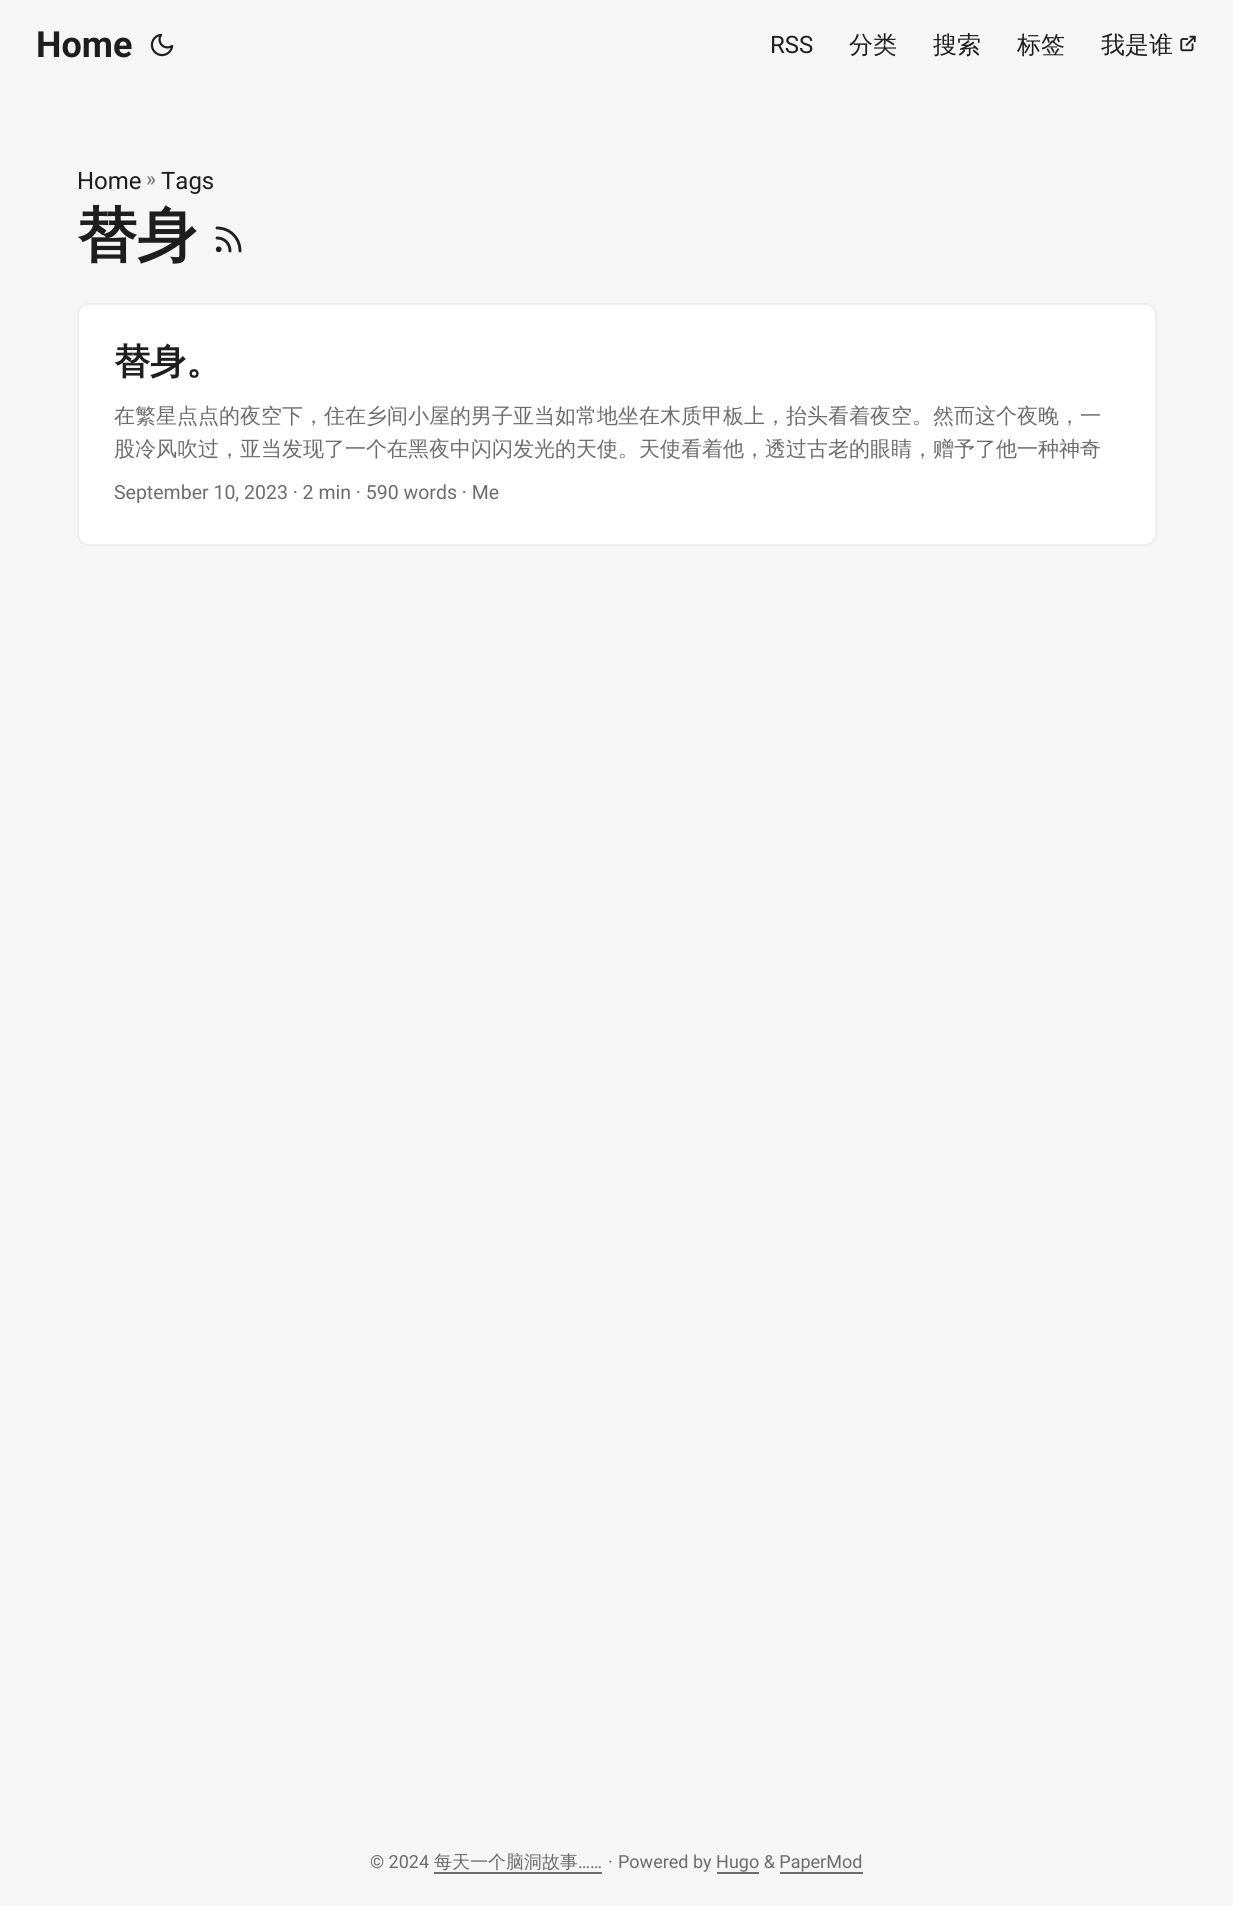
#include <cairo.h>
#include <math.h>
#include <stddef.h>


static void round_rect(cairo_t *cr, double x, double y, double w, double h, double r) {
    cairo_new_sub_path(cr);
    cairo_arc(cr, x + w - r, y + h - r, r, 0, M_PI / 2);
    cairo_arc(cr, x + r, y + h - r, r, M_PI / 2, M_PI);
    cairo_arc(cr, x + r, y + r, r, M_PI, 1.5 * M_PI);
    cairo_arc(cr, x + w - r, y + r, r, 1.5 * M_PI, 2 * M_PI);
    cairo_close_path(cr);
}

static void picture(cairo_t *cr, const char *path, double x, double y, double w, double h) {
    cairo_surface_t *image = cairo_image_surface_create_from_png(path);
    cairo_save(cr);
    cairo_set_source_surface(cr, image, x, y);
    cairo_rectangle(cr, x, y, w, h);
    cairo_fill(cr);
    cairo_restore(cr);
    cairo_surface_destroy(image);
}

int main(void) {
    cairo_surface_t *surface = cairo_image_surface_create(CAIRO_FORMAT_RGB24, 1233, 1906);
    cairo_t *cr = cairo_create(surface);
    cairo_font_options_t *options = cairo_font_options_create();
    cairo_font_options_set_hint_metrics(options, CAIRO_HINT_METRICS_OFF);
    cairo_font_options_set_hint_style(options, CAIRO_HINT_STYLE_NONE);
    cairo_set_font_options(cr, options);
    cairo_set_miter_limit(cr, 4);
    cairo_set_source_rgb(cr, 0.961, 0.961, 0.961);
    cairo_paint(cr);
    cairo_select_font_face(cr, "Roboto", CAIRO_FONT_SLANT_NORMAL, CAIRO_FONT_WEIGHT_BOLD);
    cairo_set_font_size(cr, 36);
    cairo_set_source_rgb(cr, 0.118, 0.118, 0.118);
    cairo_move_to(cr, 36, 57);
    cairo_show_text(cr, "Home");
    picture(cr, "img1.png", 150, 33, 24, 24);
    cairo_select_font_face(cr, "Roboto", CAIRO_FONT_SLANT_NORMAL, CAIRO_FONT_WEIGHT_NORMAL);
    cairo_set_font_size(cr, 24);
    cairo_move_to(cr, 770, 53);
    cairo_show_text(cr, "RSS");
    cairo_select_font_face(cr, "WenQuanYi Zen Hei Medium", CAIRO_FONT_SLANT_NORMAL, CAIRO_FONT_WEIGHT_NORMAL);
    cairo_move_to(cr, 849, 53);
    cairo_show_text(cr, "分类");
    cairo_move_to(cr, 933, 53);
    cairo_show_text(cr, "搜索");
    cairo_move_to(cr, 1017, 53);
    cairo_show_text(cr, "标签");
    cairo_move_to(cr, 1101, 53);
    cairo_show_text(cr, "我是谁");
    picture(cr, "img2.png", 1180, 35, 16, 17);
    cairo_select_font_face(cr, "Roboto", CAIRO_FONT_SLANT_NORMAL, CAIRO_FONT_WEIGHT_NORMAL);
    cairo_move_to(cr, 77, 189);
    cairo_show_text(cr, "Home");
    cairo_set_font_size(cr, 21);
    cairo_set_source_rgb(cr, 0.424, 0.424, 0.424);
    cairo_move_to(cr, 146, 186);
    cairo_show_text(cr, "»");
    cairo_set_font_size(cr, 24);
    cairo_set_source_rgb(cr, 0.118, 0.118, 0.118);
    cairo_move_to(cr, 161, 189);
    cairo_show_text(cr, "Tags");
    cairo_select_font_face(cr, "WenQuanYi Zen Hei", CAIRO_FONT_SLANT_NORMAL, CAIRO_FONT_WEIGHT_BOLD);
    cairo_set_font_size(cr, 60);
    cairo_move_to(cr, 77, 256);
    cairo_show_text(cr, "替身");
    cairo_new_path(cr);
    cairo_move_to(cr, 217, 238);
    cairo_curve_to(cr, 224.5, 238, 230, 243.5, 230, 251);
    cairo_move_to(cr, 217, 228);
    cairo_curve_to(cr, 230, 228, 240, 238, 240, 251);
    cairo_set_line_width(cr, 2.9);
    cairo_set_line_cap(cr, CAIRO_LINE_CAP_ROUND);
    cairo_set_line_join(cr, CAIRO_LINE_JOIN_ROUND);
    cairo_stroke(cr);
    cairo_arc(cr, 218.7, 249.3, 1.4, 0, 2 * M_PI);
    cairo_set_line_cap(cr, CAIRO_LINE_CAP_BUTT);
    cairo_set_line_join(cr, CAIRO_LINE_JOIN_MITER);
    cairo_stroke(cr);
    cairo_set_source_rgb(cr, 1, 1, 1);
    round_rect(cr, 78, 304, 1078, 241, 11);
    cairo_fill_preserve(cr);
    cairo_set_source_rgb(cr, 0.933, 0.933, 0.933);
    cairo_set_line_width(cr, 2);
    cairo_stroke(cr);
    cairo_set_font_size(cr, 36);
    cairo_set_source_rgb(cr, 0.118, 0.118, 0.118);
    cairo_move_to(cr, 114, 374);
    cairo_show_text(cr, "替身。");
    cairo_select_font_face(cr, "WenQuanYi Zen Hei Medium", CAIRO_FONT_SLANT_NORMAL, CAIRO_FONT_WEIGHT_NORMAL);
    cairo_set_font_size(cr, 21);
    cairo_set_source_rgb(cr, 0.424, 0.424, 0.424);
    cairo_move_to(cr, 114, 423);
    cairo_show_text(cr, "在繁星点点的夜空下，住在乡间小屋的男子亚当如常地坐在木质甲板上，抬头看着夜空。然而这个夜晚，一");
    cairo_move_to(cr, 114, 456);
    cairo_show_text(cr, "股冷风吹过，亚当发现了一个在黑夜中闪闪发光的天使。天使看着他，透过古老的眼睛，赠予了他一种神奇");
    cairo_select_font_face(cr, "Roboto", CAIRO_FONT_SLANT_NORMAL, CAIRO_FONT_WEIGHT_NORMAL);
    cairo_set_font_size(cr, 19.5);
    cairo_move_to(cr, 114, 499);
    cairo_show_text(cr, "September 10, 2023 · 2 min · 590 words · Me");
    cairo_set_font_size(cr, 18);
    cairo_move_to(cr, 370, 1868);
    cairo_show_text(cr, "© 2024");
    cairo_select_font_face(cr, "WenQuanYi Zen Hei Medium", CAIRO_FONT_SLANT_NORMAL, CAIRO_FONT_WEIGHT_NORMAL);
    cairo_move_to(cr, 434, 1868);
    cairo_show_text(cr, "每天一个脑洞故事");
    cairo_select_font_face(cr, "Roboto", CAIRO_FONT_SLANT_NORMAL, CAIRO_FONT_WEIGHT_NORMAL);
    cairo_move_to(cr, 608, 1868);
    cairo_show_text(cr, "·");
    cairo_move_to(cr, 618, 1868);
    cairo_show_text(cr, "Powered by Hugo & PaperMod");
    cairo_rectangle(cr, 717, 1872, 42, 2);
    cairo_fill(cr);
    cairo_rectangle(cr, 780, 1872, 83, 2);
    cairo_fill(cr);
    cairo_move_to(cr, 578, 1868);
    cairo_show_text(cr, "……");
    cairo_rectangle(cr, 434, 1872, 168, 2);
    cairo_fill(cr);
    cairo_surface_write_to_png(surface, "page.png");
    cairo_font_options_destroy(options);
    cairo_destroy(cr);
    cairo_surface_destroy(surface);
    return 0;
}
